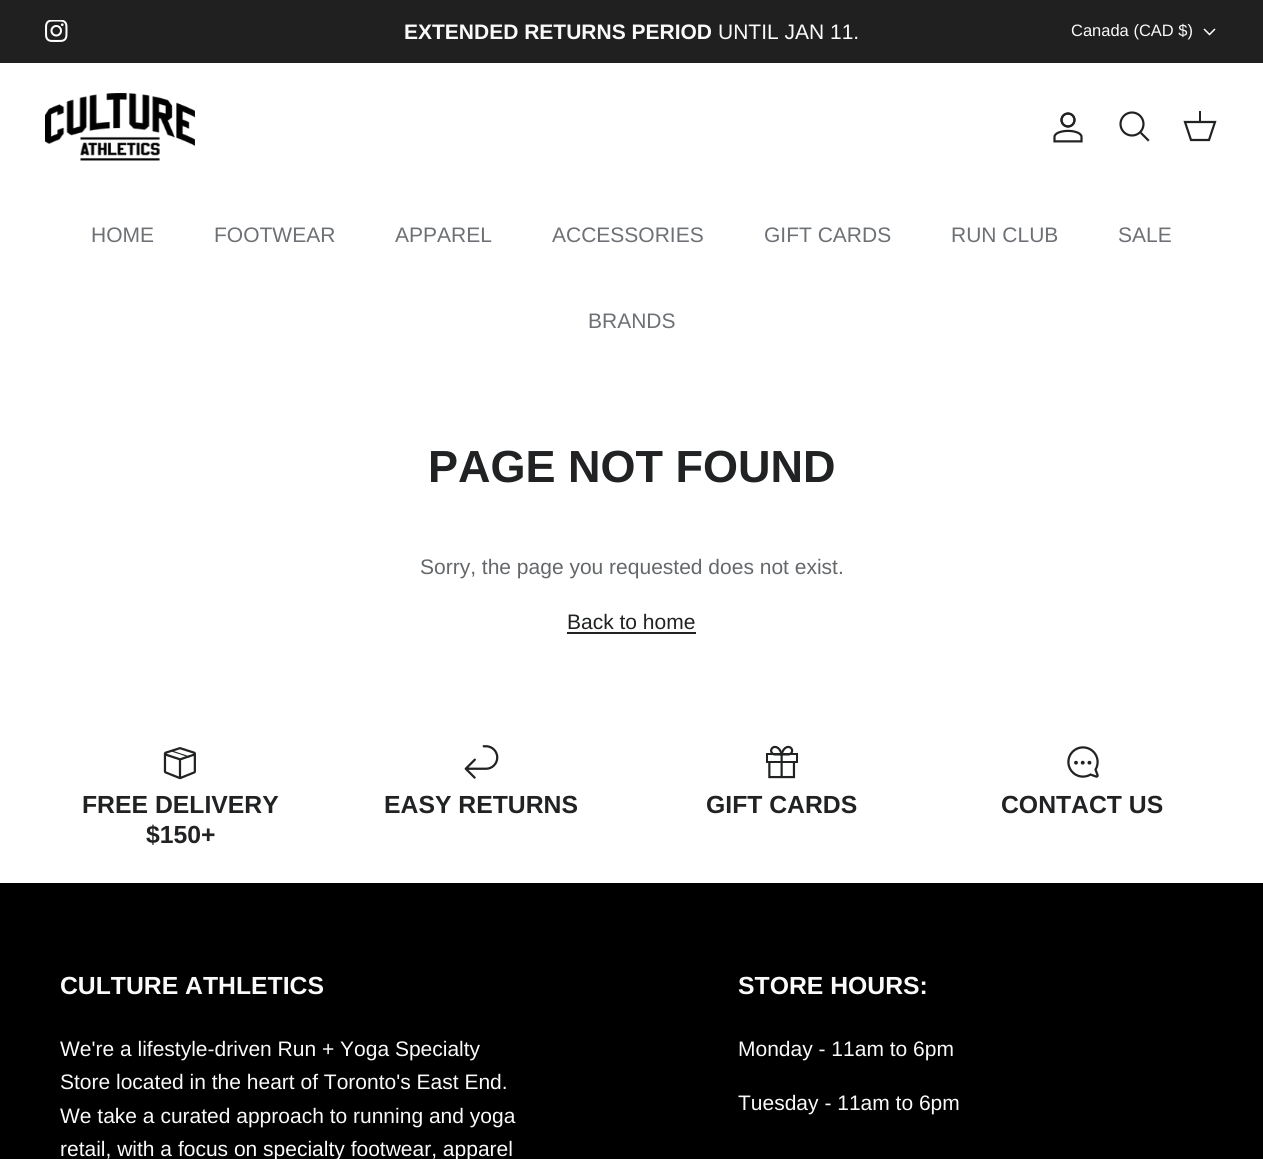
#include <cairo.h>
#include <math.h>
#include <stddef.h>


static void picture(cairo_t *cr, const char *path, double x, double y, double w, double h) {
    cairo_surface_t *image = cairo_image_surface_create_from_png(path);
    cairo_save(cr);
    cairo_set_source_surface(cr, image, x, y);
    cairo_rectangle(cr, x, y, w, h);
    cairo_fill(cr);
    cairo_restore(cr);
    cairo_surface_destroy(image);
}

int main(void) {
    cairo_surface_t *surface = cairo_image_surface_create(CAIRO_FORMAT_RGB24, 1263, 1159);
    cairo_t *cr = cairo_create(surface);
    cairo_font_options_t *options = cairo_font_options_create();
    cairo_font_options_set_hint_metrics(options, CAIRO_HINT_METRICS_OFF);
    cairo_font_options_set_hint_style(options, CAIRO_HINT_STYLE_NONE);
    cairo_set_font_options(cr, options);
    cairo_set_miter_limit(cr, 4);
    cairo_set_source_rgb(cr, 1, 1, 1);
    cairo_paint(cr);
    cairo_set_source_rgb(cr, 0.125, 0.125, 0.125);
    cairo_rectangle(cr, 0, 0, 1263, 63);
    cairo_fill(cr);
    picture(cr, "img1.png", 45, 20, 23, 22);
    cairo_select_font_face(cr, "Liberation Sans", CAIRO_FONT_SLANT_NORMAL, CAIRO_FONT_WEIGHT_BOLD);
    cairo_set_font_size(cr, 21);
    cairo_set_source_rgb(cr, 0.98, 0.98, 0.98);
    cairo_move_to(cr, 404, 39);
    cairo_show_text(cr, "EXTENDED RETURNS PERIOD");
    cairo_select_font_face(cr, "Liberation Sans", CAIRO_FONT_SLANT_NORMAL, CAIRO_FONT_WEIGHT_NORMAL);
    cairo_move_to(cr, 718, 39);
    cairo_show_text(cr, "UNTIL JAN 11.");
    cairo_set_font_size(cr, 16.5);
    cairo_move_to(cr, 1071, 36);
    cairo_show_text(cr, "Canada (CAD $)");
    cairo_new_path(cr);
    cairo_move_to(cr, 1215, 29);
    cairo_line_to(cr, 1209.5, 34.5);
    cairo_line_to(cr, 1204, 29);
    cairo_set_source_rgb(cr, 1, 1, 1);
    cairo_set_line_width(cr, 1.5);
    cairo_stroke(cr);
    picture(cr, "img2.png", 45, 93, 150, 68);
    picture(cr, "img3.png", 1053, 112, 30, 31);
    cairo_arc(cr, 1132, 124, 11.5, 0, 2 * M_PI);
    cairo_set_source_rgb(cr, 0.125, 0.133, 0.137);
    cairo_set_line_width(cr, 2.2);
    cairo_stroke(cr);
    cairo_new_path(cr);
    cairo_move_to(cr, 1141.5, 133.5);
    cairo_line_to(cr, 1148, 140);
    cairo_set_line_cap(cr, CAIRO_LINE_CAP_SQUARE);
    cairo_stroke(cr);
    cairo_new_path(cr);
    cairo_move_to(cr, 1185, 122);
    cairo_line_to(cr, 1215, 122);
    cairo_line_to(cr, 1209, 140);
    cairo_line_to(cr, 1191, 140);
    cairo_close_path(cr);
    cairo_set_line_cap(cr, CAIRO_LINE_CAP_BUTT);
    cairo_stroke(cr);
    cairo_rectangle(cr, 1199, 111, 2, 12);
    cairo_fill(cr);
    cairo_set_font_size(cr, 21);
    cairo_set_source_rgb(cr, 0.427, 0.443, 0.459);
    cairo_move_to(cr, 91, 242);
    cairo_show_text(cr, "HOME");
    cairo_move_to(cr, 214, 242);
    cairo_show_text(cr, "FOOTWEAR");
    cairo_move_to(cr, 395, 242);
    cairo_show_text(cr, "APPAREL");
    cairo_move_to(cr, 552, 242);
    cairo_show_text(cr, "ACCESSORIES");
    cairo_move_to(cr, 764, 242);
    cairo_show_text(cr, "GIFT CARDS");
    cairo_move_to(cr, 951, 242);
    cairo_show_text(cr, "RUN CLUB");
    cairo_move_to(cr, 1118, 242);
    cairo_show_text(cr, "SALE");
    cairo_move_to(cr, 588, 328);
    cairo_show_text(cr, "BRANDS");
    cairo_select_font_face(cr, "Liberation Sans", CAIRO_FONT_SLANT_NORMAL, CAIRO_FONT_WEIGHT_BOLD);
    cairo_set_font_size(cr, 45);
    cairo_set_source_rgb(cr, 0.125, 0.133, 0.137);
    cairo_move_to(cr, 428, 482);
    cairo_show_text(cr, "PAGE NOT FOUND");
    cairo_select_font_face(cr, "Liberation Sans", CAIRO_FONT_SLANT_NORMAL, CAIRO_FONT_WEIGHT_NORMAL);
    cairo_set_font_size(cr, 21);
    cairo_set_source_rgb(cr, 0.396, 0.408, 0.42);
    cairo_move_to(cr, 420, 574);
    cairo_show_text(cr, "Sorry, the page you requested does not exist.");
    cairo_set_source_rgb(cr, 0.125, 0.133, 0.137);
    cairo_move_to(cr, 567, 629);
    cairo_show_text(cr, "Back to home");
    cairo_rectangle(cr, 567, 632, 129, 2);
    cairo_fill(cr);
    picture(cr, "img4.png", 163, 747, 33, 33);
    cairo_select_font_face(cr, "Liberation Sans", CAIRO_FONT_SLANT_NORMAL, CAIRO_FONT_WEIGHT_BOLD);
    cairo_set_font_size(cr, 24.75);
    cairo_move_to(cr, 82, 813);
    cairo_show_text(cr, "FREE DELIVERY");
    cairo_move_to(cr, 146, 843);
    cairo_show_text(cr, "$150+");
    picture(cr, "img5.png", 464, 745, 35, 34);
    cairo_move_to(cr, 384, 813);
    cairo_show_text(cr, "EASY RETURNS");
    picture(cr, "img6.png", 766, 745, 32, 34);
    cairo_move_to(cr, 706, 813);
    cairo_show_text(cr, "GIFT CARDS");
    picture(cr, "img7.png", 1067, 746, 32, 32);
    cairo_move_to(cr, 1001, 813);
    cairo_show_text(cr, "CONTACT US");
    cairo_set_source_rgb(cr, 0, 0, 0);
    cairo_rectangle(cr, 0, 883, 1263, 276);
    cairo_fill(cr);
    cairo_set_source_rgb(cr, 0.98, 0.98, 0.98);
    cairo_move_to(cr, 60, 994);
    cairo_show_text(cr, "CULTURE ATHLETICS");
    cairo_select_font_face(cr, "Liberation Sans", CAIRO_FONT_SLANT_NORMAL, CAIRO_FONT_WEIGHT_NORMAL);
    cairo_set_font_size(cr, 21);
    cairo_move_to(cr, 60, 1056);
    cairo_show_text(cr, "We're a lifestyle-driven Run + Yoga Specialty");
    cairo_move_to(cr, 60, 1089);
    cairo_show_text(cr, "Store located in the heart of Toronto's East End.");
    cairo_move_to(cr, 60, 1123);
    cairo_show_text(cr, "We take a curated approach to running and yoga");
    cairo_move_to(cr, 60, 1156);
    cairo_show_text(cr, "retail, with a focus on specialty footwear, apparel");
    cairo_select_font_face(cr, "Liberation Sans", CAIRO_FONT_SLANT_NORMAL, CAIRO_FONT_WEIGHT_BOLD);
    cairo_set_font_size(cr, 24.75);
    cairo_move_to(cr, 738, 994);
    cairo_show_text(cr, "STORE HOURS:");
    cairo_select_font_face(cr, "Liberation Sans", CAIRO_FONT_SLANT_NORMAL, CAIRO_FONT_WEIGHT_NORMAL);
    cairo_set_font_size(cr, 21);
    cairo_move_to(cr, 738, 1056);
    cairo_show_text(cr, "Monday - 11am to 6pm");
    cairo_move_to(cr, 738, 1110);
    cairo_show_text(cr, "Tuesday - 11am to 6pm");
    cairo_surface_write_to_png(surface, "page.png");
    cairo_font_options_destroy(options);
    cairo_destroy(cr);
    cairo_surface_destroy(surface);
    return 0;
}
